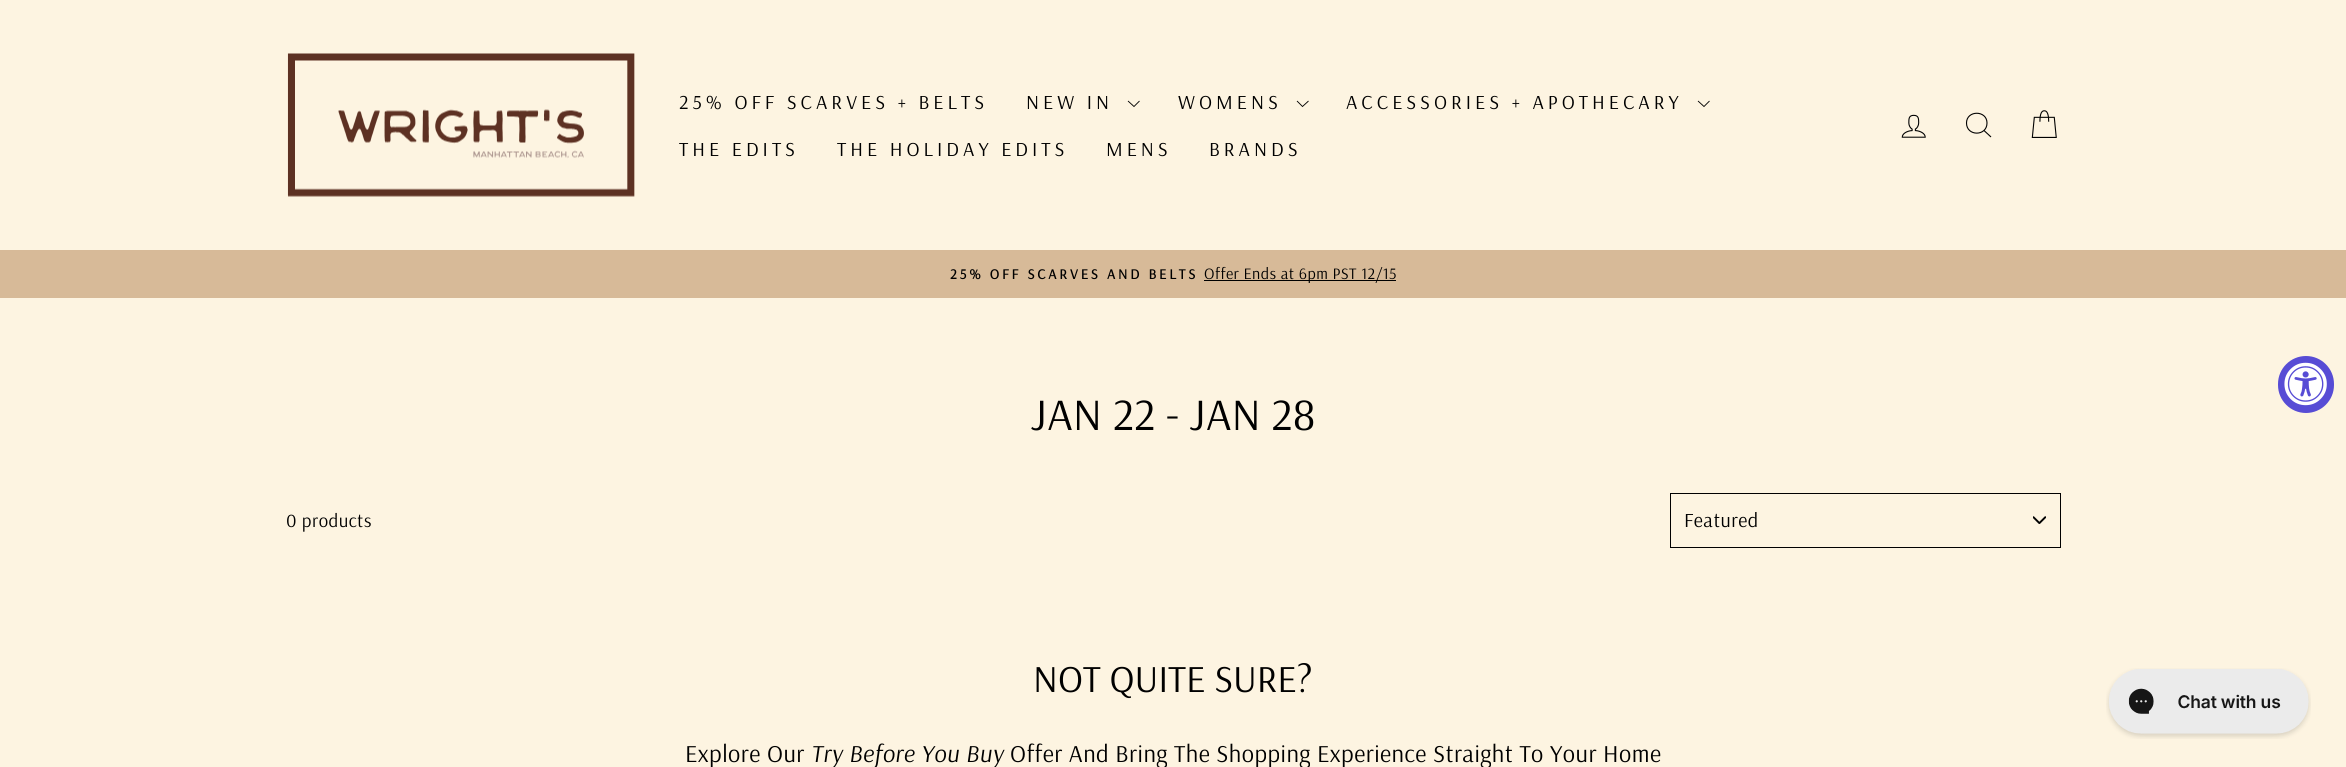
#include <cairo.h>
#include <math.h>
#include <stddef.h>


static void spaced_text(cairo_t *cr, double x, double y, const char *s, double letter, double word) {
    cairo_move_to(cr, x, y);
    while (*s) {
        char ch[5] = {0};
        int n = 0;
        do ch[n++] = *s++; while ((*s & 0xC0) == 0x80);
        cairo_show_text(cr, ch);
        cairo_rel_move_to(cr, letter + word * (*ch == ' '), 0);
    }
}

static void round_rect(cairo_t *cr, double x, double y, double w, double h, double r) {
    cairo_new_sub_path(cr);
    cairo_arc(cr, x + w - r, y + h - r, r, 0, M_PI / 2);
    cairo_arc(cr, x + r, y + h - r, r, M_PI / 2, M_PI);
    cairo_arc(cr, x + r, y + r, r, M_PI, 1.5 * M_PI);
    cairo_arc(cr, x + w - r, y + r, r, 1.5 * M_PI, 2 * M_PI);
    cairo_close_path(cr);
}

static void picture(cairo_t *cr, const char *path, double x, double y, double w, double h) {
    cairo_surface_t *image = cairo_image_surface_create_from_png(path);
    cairo_save(cr);
    cairo_set_source_surface(cr, image, x, y);
    cairo_rectangle(cr, x, y, w, h);
    cairo_fill(cr);
    cairo_restore(cr);
    cairo_surface_destroy(image);
}

int main(void) {
    cairo_surface_t *surface = cairo_image_surface_create(CAIRO_FORMAT_RGB24, 2346, 767);
    cairo_t *cr = cairo_create(surface);
    cairo_font_options_t *options = cairo_font_options_create();
    cairo_font_options_set_hint_metrics(options, CAIRO_HINT_METRICS_OFF);
    cairo_font_options_set_hint_style(options, CAIRO_HINT_STYLE_NONE);
    cairo_set_font_options(cr, options);
    cairo_set_miter_limit(cr, 4);
    cairo_set_source_rgb(cr, 0.992, 0.957, 0.882);
    cairo_paint(cr);
    picture(cr, "img1.png", 287, 53, 348, 144);
    cairo_select_font_face(cr, "Arsenal", CAIRO_FONT_SLANT_NORMAL, CAIRO_FONT_WEIGHT_NORMAL);
    cairo_set_font_size(cr, 20);
    cairo_set_source_rgb(cr, 0, 0, 0);
    spaced_text(cr, 679, 109, "25% OFF SCARVES + BELTS", 4, 0);
    spaced_text(cr, 1026, 109, "NEW IN", 4, 0);
    cairo_new_path(cr);
    cairo_move_to(cr, 1128, 101);
    cairo_line_to(cr, 1134, 106.5);
    cairo_line_to(cr, 1139.5, 101);
    cairo_set_line_width(cr, 0.9);
    cairo_stroke(cr);
    spaced_text(cr, 1178, 109, "WOMENS", 4, 0);
    cairo_new_path(cr);
    cairo_move_to(cr, 1297, 101);
    cairo_line_to(cr, 1302.5, 106.5);
    cairo_line_to(cr, 1308.5, 101);
    cairo_stroke(cr);
    spaced_text(cr, 1346, 109, "ACCESSORIES + APOTHECARY", 4, 0);
    cairo_new_path(cr);
    cairo_move_to(cr, 1698, 101);
    cairo_line_to(cr, 1704, 106.5);
    cairo_line_to(cr, 1709.5, 101);
    cairo_stroke(cr);
    spaced_text(cr, 679, 156, "THE EDITS", 4, 0);
    spaced_text(cr, 837, 156, "THE HOLIDAY EDITS", 4, 0);
    spaced_text(cr, 1106, 156, "MENS", 4, 0);
    spaced_text(cr, 1209, 156, "BRANDS", 4, 0);
    picture(cr, "img2.png", 1901, 114, 25, 24);
    cairo_new_path(cr);
    cairo_move_to(cr, 1987, 123);
    cairo_curve_to(cr, 1987, 136.5, 1966.5, 136.5, 1966.5, 123);
    cairo_curve_to(cr, 1966.5, 110, 1987, 110, 1987, 123);
    cairo_close_path(cr);
    cairo_move_to(cr, 1991, 137);
    cairo_line_to(cr, 1984, 130.5);
    cairo_set_line_width(cr, 1.1);
    cairo_stroke(cr);
    picture(cr, "img3.png", 2031, 110, 26, 28);
    cairo_set_source_rgb(cr, 0.843, 0.729, 0.596);
    cairo_rectangle(cr, 0, 250, 2346, 48);
    cairo_fill(cr);
    cairo_select_font_face(cr, "Arsenal", CAIRO_FONT_SLANT_NORMAL, CAIRO_FONT_WEIGHT_BOLD);
    cairo_set_font_size(cr, 14.3);
    cairo_set_source_rgb(cr, 0, 0, 0);
    spaced_text(cr, 950, 279, "25% OFF SCARVES AND BELTS", 2.9, 0);
    cairo_rectangle(cr, 1204, 280, 192, 1);
    cairo_fill(cr);
    cairo_select_font_face(cr, "Arsenal", CAIRO_FONT_SLANT_NORMAL, CAIRO_FONT_WEIGHT_NORMAL);
    cairo_set_font_size(cr, 16);
    spaced_text(cr, 1204, 279, "Offer Ends at 6pm PST 12/15", 0.47, 0);
    cairo_set_font_size(cr, 45);
    cairo_move_to(cr, 1031, 430);
    cairo_show_text(cr, "JAN 22 - JAN 28");
    cairo_set_font_size(cr, 18.75);
    spaced_text(cr, 286, 527, "0 products", 0.47, 0);
    picture(cr, "img4.png", 2033, 516, 13, 8);
    cairo_rectangle(cr, 1670.5, 493.5, 390, 54);
    cairo_set_line_width(cr, 1);
    cairo_stroke(cr);
    cairo_set_font_size(cr, 20);
    spaced_text(cr, 1684, 527, "Featured", 0.5, 0);
    cairo_set_font_size(cr, 38.25);
    cairo_move_to(cr, 1033, 692);
    cairo_show_text(cr, "NOT QUITE SURE?");
    cairo_set_font_size(cr, 24.4);
    spaced_text(cr, 685, 762, "Explore Our", 0.47, 0);
    cairo_select_font_face(cr, "Arsenal", CAIRO_FONT_SLANT_ITALIC, CAIRO_FONT_WEIGHT_NORMAL);
    spaced_text(cr, 811, 762, "Try Before You Buy", 0.47, 0);
    cairo_select_font_face(cr, "Arsenal", CAIRO_FONT_SLANT_NORMAL, CAIRO_FONT_WEIGHT_NORMAL);
    spaced_text(cr, 1010, 762, "Offer And Bring The Shopping Experience Straight To Your Home", 0.47, 0);
    cairo_set_source_rgb(cr, 0.341, 0.298, 0.835);
    round_rect(cr, 2278, 356, 56, 57, 28);
    cairo_fill(cr);
    picture(cr, "img5.png", 2284, 362, 43, 44);
    picture(cr, "img6.png", 2106, 668, 205, 71);
    cairo_surface_write_to_png(surface, "page.png");
    cairo_font_options_destroy(options);
    cairo_destroy(cr);
    cairo_surface_destroy(surface);
    return 0;
}
